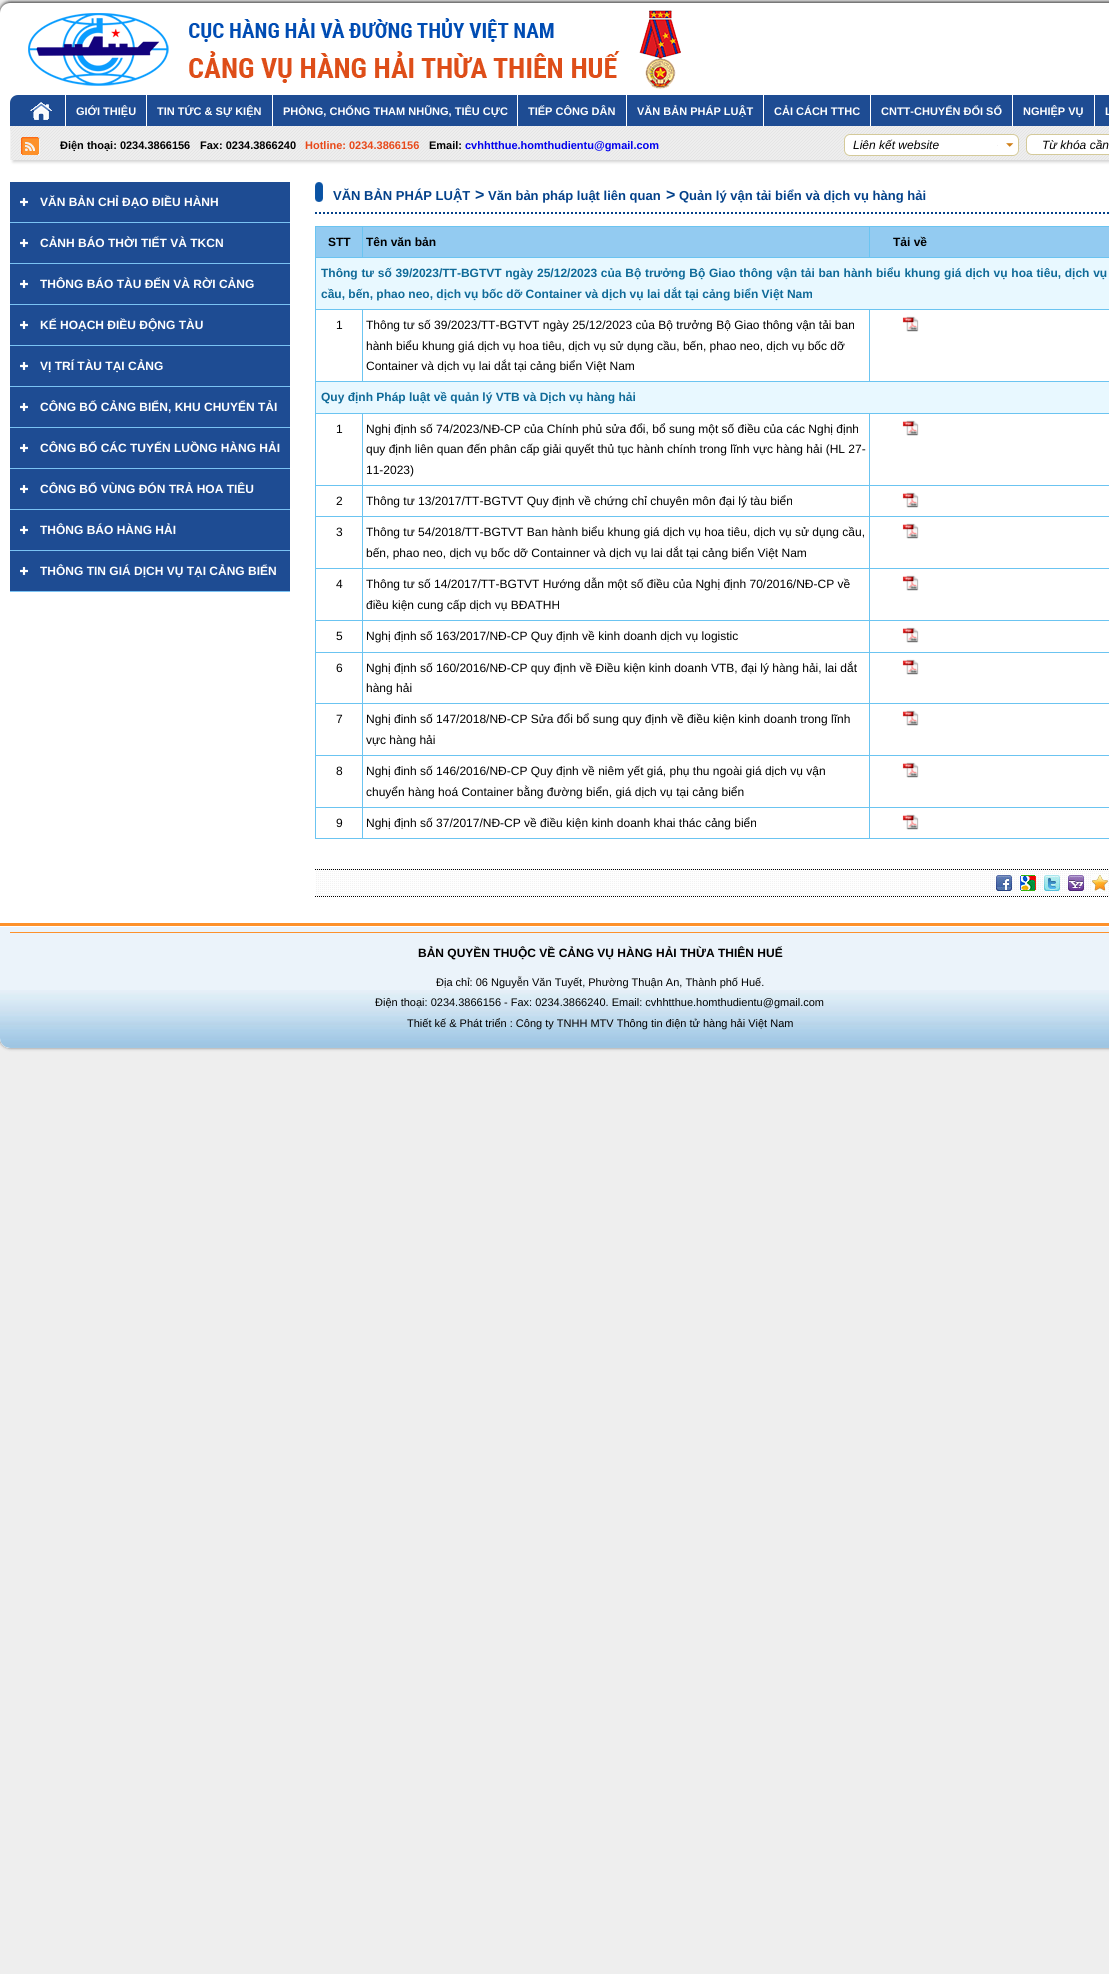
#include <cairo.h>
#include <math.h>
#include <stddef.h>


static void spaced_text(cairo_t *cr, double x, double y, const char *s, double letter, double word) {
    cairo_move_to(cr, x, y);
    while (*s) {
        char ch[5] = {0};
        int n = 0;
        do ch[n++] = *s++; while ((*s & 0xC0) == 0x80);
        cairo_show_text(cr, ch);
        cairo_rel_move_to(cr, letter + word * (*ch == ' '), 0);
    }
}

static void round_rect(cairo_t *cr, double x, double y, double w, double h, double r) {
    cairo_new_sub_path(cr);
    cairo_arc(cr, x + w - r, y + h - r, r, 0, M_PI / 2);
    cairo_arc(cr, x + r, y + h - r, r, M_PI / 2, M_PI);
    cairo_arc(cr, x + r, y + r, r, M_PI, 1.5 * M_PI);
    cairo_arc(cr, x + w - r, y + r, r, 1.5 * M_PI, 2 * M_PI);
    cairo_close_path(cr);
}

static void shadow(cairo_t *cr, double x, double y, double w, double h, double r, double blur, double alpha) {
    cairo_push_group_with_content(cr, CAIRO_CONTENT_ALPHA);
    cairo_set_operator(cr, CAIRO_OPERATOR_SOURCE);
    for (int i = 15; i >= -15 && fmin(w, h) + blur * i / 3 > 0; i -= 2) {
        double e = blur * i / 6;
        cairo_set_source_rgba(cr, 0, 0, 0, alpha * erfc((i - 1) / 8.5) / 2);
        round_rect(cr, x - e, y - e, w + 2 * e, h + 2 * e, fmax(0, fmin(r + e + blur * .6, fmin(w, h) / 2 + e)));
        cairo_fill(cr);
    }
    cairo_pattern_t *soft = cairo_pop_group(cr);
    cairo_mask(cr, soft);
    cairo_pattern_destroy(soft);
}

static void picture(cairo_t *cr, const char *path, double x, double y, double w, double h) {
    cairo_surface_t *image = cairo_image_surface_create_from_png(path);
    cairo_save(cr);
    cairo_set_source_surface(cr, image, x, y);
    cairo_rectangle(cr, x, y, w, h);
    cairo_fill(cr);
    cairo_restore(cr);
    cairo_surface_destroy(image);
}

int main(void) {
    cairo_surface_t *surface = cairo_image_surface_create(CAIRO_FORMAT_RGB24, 1109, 1974);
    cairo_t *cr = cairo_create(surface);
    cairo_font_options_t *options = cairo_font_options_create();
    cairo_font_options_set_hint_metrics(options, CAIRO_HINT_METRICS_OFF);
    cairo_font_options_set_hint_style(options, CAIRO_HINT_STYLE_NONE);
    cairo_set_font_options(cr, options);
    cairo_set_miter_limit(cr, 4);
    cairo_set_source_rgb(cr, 0.933, 0.933, 0.933);
    cairo_paint(cr);
    cairo_set_source_rgb(cr, 0.145, 0.145, 0.145);
    shadow(cr, 0, 2, 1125, 1045, 10, 2, 1);
    cairo_set_source_rgb(cr, 1, 1, 1);
    round_rect(cr, 0, 3, 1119, 1045, 10);
    cairo_fill(cr);
    picture(cr, "img1.png", 28, 10, 653, 79);
    cairo_set_source_rgb(cr, 0.118, 0.298, 0.576);
    cairo_new_path(cr);
    cairo_move_to(cr, 18, 95);
    cairo_line_to(cr, 1109, 95);
    cairo_curve_to(cr, 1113.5, 95, 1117, 98.5, 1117, 103);
    cairo_line_to(cr, 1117, 126);
    cairo_line_to(cr, 10, 126);
    cairo_line_to(cr, 10, 103);
    cairo_curve_to(cr, 10, 98.5, 13.5, 95, 18, 95);
    cairo_close_path(cr);
    cairo_fill(cr);
    cairo_set_source_rgb(cr, 1, 1, 1);
    cairo_rectangle(cr, 65, 95, 1030, 31);
    cairo_fill(cr);
    picture(cr, "img2.png", 30, 102, 22, 18);
    cairo_set_source_rgb(cr, 0.118, 0.298, 0.576);
    cairo_rectangle(cr, 66, 95, 80, 31);
    cairo_fill(cr);
    cairo_select_font_face(cr, "Liberation Sans", CAIRO_FONT_SLANT_NORMAL, CAIRO_FONT_WEIGHT_BOLD);
    cairo_set_font_size(cr, 11);
    cairo_set_source_rgb(cr, 1, 1, 1);
    cairo_move_to(cr, 76, 115);
    cairo_show_text(cr, "GIỚI THIỆU");
    cairo_set_source_rgb(cr, 0.118, 0.298, 0.576);
    cairo_rectangle(cr, 147, 95, 125, 31);
    cairo_fill(cr);
    cairo_set_source_rgb(cr, 1, 1, 1);
    cairo_move_to(cr, 157, 115);
    cairo_show_text(cr, "TIN TỨC & SỰ KIỆN");
    cairo_set_source_rgb(cr, 0.118, 0.298, 0.576);
    cairo_rectangle(cr, 273, 95, 244, 31);
    cairo_fill(cr);
    cairo_set_source_rgb(cr, 1, 1, 1);
    cairo_move_to(cr, 283, 115);
    cairo_show_text(cr, "PHÒNG, CHỐNG THAM NHŨNG, TIÊU CỰC");
    cairo_set_source_rgb(cr, 0.118, 0.298, 0.576);
    cairo_rectangle(cr, 518, 95, 108, 31);
    cairo_fill(cr);
    cairo_set_source_rgb(cr, 1, 1, 1);
    cairo_move_to(cr, 528, 115);
    cairo_show_text(cr, "TIẾP CÔNG DÂN");
    cairo_set_source_rgb(cr, 0.118, 0.298, 0.576);
    cairo_rectangle(cr, 627, 95, 136, 31);
    cairo_fill(cr);
    cairo_set_source_rgb(cr, 1, 1, 1);
    cairo_move_to(cr, 637, 115);
    cairo_show_text(cr, "VĂN BẢN PHÁP LUẬT");
    cairo_set_source_rgb(cr, 0.118, 0.298, 0.576);
    cairo_rectangle(cr, 764, 95, 106, 31);
    cairo_fill(cr);
    cairo_set_source_rgb(cr, 1, 1, 1);
    cairo_move_to(cr, 774, 115);
    cairo_show_text(cr, "CẢI CÁCH TTHC");
    cairo_set_source_rgb(cr, 0.118, 0.298, 0.576);
    cairo_rectangle(cr, 871, 95, 141, 31);
    cairo_fill(cr);
    cairo_set_source_rgb(cr, 1, 1, 1);
    cairo_move_to(cr, 881, 115);
    cairo_show_text(cr, "CNTT-CHUYỂN ĐỔI SỐ");
    cairo_set_source_rgb(cr, 0.118, 0.298, 0.576);
    cairo_rectangle(cr, 1013, 95, 81, 31);
    cairo_fill(cr);
    cairo_set_source_rgb(cr, 1, 1, 1);
    cairo_move_to(cr, 1023, 115);
    cairo_show_text(cr, "NGHIỆP VỤ");
    cairo_move_to(cr, 1105, 115);
    cairo_show_text(cr, "L");
    cairo_set_source_rgb(cr, 0.933, 0.933, 0.933);
    cairo_rectangle(cr, 10, 126, 1099, 5);
    cairo_fill(cr);
    picture(cr, "img3.png", 10, 126, 1099, 5);
    cairo_set_source_rgb(cr, 0.824, 0.824, 0.824);
    shadow(cr, 13, 139, 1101, 23, 0, 1.5, 1);
    cairo_set_source_rgb(cr, 0.933, 0.933, 0.933);
    cairo_rectangle(cr, 11, 131, 1098, 29);
    cairo_fill(cr);
    picture(cr, "img4.png", 11, 131, 1098, 29);
    cairo_set_source_rgb(cr, 0.949, 0.949, 0.949);
    cairo_rectangle(cr, 10, 131, 1, 29);
    cairo_fill(cr);
    picture(cr, "img5.png", 21, 137, 19, 18);
    cairo_set_source_rgb(cr, 0, 0, 0);
    cairo_move_to(cr, 60, 149);
    cairo_show_text(cr, "Điện thoại: 0234.3866156");
    cairo_move_to(cr, 200, 149);
    cairo_show_text(cr, "Fax: 0234.3866240");
    cairo_set_source_rgb(cr, 0.91, 0.286, 0.098);
    cairo_move_to(cr, 305, 149);
    cairo_show_text(cr, "Hotline: 0234.3866156");
    cairo_set_source_rgb(cr, 0, 0, 0);
    cairo_move_to(cr, 429, 149);
    cairo_show_text(cr, "Email:");
    cairo_set_source_rgb(cr, 0, 0, 0.933);
    cairo_move_to(cr, 465, 149);
    cairo_show_text(cr, "cvhhtthue.homthudientu@gmail.com");
    cairo_set_source_rgb(cr, 1, 1, 1);
    round_rect(cr, 844, 134, 175, 22, 6);
    cairo_fill(cr);
    picture(cr, "img6.png", 1006, 143, 8, 4);
    round_rect(cr, 844.5, 134.5, 174, 21, 5.5);
    cairo_set_source_rgb(cr, 0.831, 0.792, 0.604);
    cairo_set_line_width(cr, 1);
    cairo_stroke(cr);
    cairo_set_source_rgb(cr, 0.949, 0.949, 0.949);
    cairo_rectangle(cr, 997, 145, 1, 1);
    cairo_fill(cr);
    cairo_select_font_face(cr, "Liberation Sans", CAIRO_FONT_SLANT_ITALIC, CAIRO_FONT_WEIGHT_NORMAL);
    cairo_set_font_size(cr, 12);
    cairo_set_source_rgb(cr, 0, 0, 0);
    cairo_move_to(cr, 853, 149);
    cairo_show_text(cr, "Liên kết website");
    cairo_set_source_rgb(cr, 1, 1, 1);
    round_rect(cr, 1026.5, 134.5, 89, 20, 5.5);
    cairo_fill_preserve(cr);
    cairo_set_source_rgb(cr, 0.831, 0.792, 0.604);
    cairo_stroke(cr);
    cairo_set_source_rgb(cr, 0, 0, 0);
    cairo_move_to(cr, 1042, 149);
    cairo_show_text(cr, "Từ khóa cần");
    cairo_set_source_rgb(cr, 0.118, 0.298, 0.576);
    cairo_rectangle(cr, 10, 182, 280, 40);
    cairo_fill(cr);
    picture(cr, "img7.png", 20, 198, 8, 8);
    cairo_set_source_rgb(cr, 0.478, 0.765, 0.957);
    cairo_rectangle(cr, 10, 222, 280, 1);
    cairo_fill(cr);
    cairo_select_font_face(cr, "Liberation Sans", CAIRO_FONT_SLANT_NORMAL, CAIRO_FONT_WEIGHT_BOLD);
    cairo_set_source_rgb(cr, 1, 1, 1);
    cairo_move_to(cr, 40, 206);
    cairo_show_text(cr, "VĂN BẢN CHỈ ĐẠO ĐIỀU HÀNH");
    cairo_set_source_rgb(cr, 0.118, 0.298, 0.576);
    cairo_rectangle(cr, 10, 223, 280, 40);
    cairo_fill(cr);
    picture(cr, "img7.png", 20, 239, 8, 8);
    cairo_set_source_rgb(cr, 0.478, 0.765, 0.957);
    cairo_rectangle(cr, 10, 263, 280, 1);
    cairo_fill(cr);
    cairo_set_source_rgb(cr, 1, 1, 1);
    cairo_move_to(cr, 40, 247);
    cairo_show_text(cr, "CẢNH BÁO THỜI TIẾT VÀ TKCN");
    cairo_set_source_rgb(cr, 0.118, 0.298, 0.576);
    cairo_rectangle(cr, 10, 264, 280, 40);
    cairo_fill(cr);
    picture(cr, "img7.png", 20, 280, 8, 8);
    cairo_set_source_rgb(cr, 0.478, 0.765, 0.957);
    cairo_rectangle(cr, 10, 304, 280, 1);
    cairo_fill(cr);
    cairo_set_source_rgb(cr, 1, 1, 1);
    cairo_move_to(cr, 40, 288);
    cairo_show_text(cr, "THÔNG BÁO TÀU ĐẾN VÀ RỜI CẢNG");
    cairo_set_source_rgb(cr, 0.118, 0.298, 0.576);
    cairo_rectangle(cr, 10, 305, 280, 40);
    cairo_fill(cr);
    picture(cr, "img7.png", 20, 321, 8, 8);
    cairo_set_source_rgb(cr, 0.478, 0.765, 0.957);
    cairo_rectangle(cr, 10, 345, 280, 1);
    cairo_fill(cr);
    cairo_set_source_rgb(cr, 1, 1, 1);
    cairo_move_to(cr, 40, 329);
    cairo_show_text(cr, "KẾ HOẠCH ĐIỀU ĐỘNG TÀU");
    cairo_set_source_rgb(cr, 0.118, 0.298, 0.576);
    cairo_rectangle(cr, 10, 346, 280, 40);
    cairo_fill(cr);
    picture(cr, "img7.png", 20, 362, 8, 8);
    cairo_set_source_rgb(cr, 0.478, 0.765, 0.957);
    cairo_rectangle(cr, 10, 386, 280, 1);
    cairo_fill(cr);
    cairo_set_source_rgb(cr, 1, 1, 1);
    cairo_move_to(cr, 40, 370);
    cairo_show_text(cr, "VỊ TRÍ TÀU TẠI CẢNG");
    cairo_set_source_rgb(cr, 0.118, 0.298, 0.576);
    cairo_rectangle(cr, 10, 387, 280, 40);
    cairo_fill(cr);
    picture(cr, "img7.png", 20, 403, 8, 8);
    cairo_set_source_rgb(cr, 0.478, 0.765, 0.957);
    cairo_rectangle(cr, 10, 427, 280, 1);
    cairo_fill(cr);
    cairo_set_source_rgb(cr, 1, 1, 1);
    cairo_move_to(cr, 40, 411);
    cairo_show_text(cr, "CÔNG BỐ CẢNG BIỂN, KHU CHUYỂN TẢI");
    cairo_set_source_rgb(cr, 0.118, 0.298, 0.576);
    cairo_rectangle(cr, 10, 428, 280, 40);
    cairo_fill(cr);
    picture(cr, "img7.png", 20, 444, 8, 8);
    cairo_set_source_rgb(cr, 0.478, 0.765, 0.957);
    cairo_rectangle(cr, 10, 468, 280, 1);
    cairo_fill(cr);
    cairo_set_source_rgb(cr, 1, 1, 1);
    cairo_move_to(cr, 40, 452);
    cairo_show_text(cr, "CÔNG BỐ CÁC TUYẾN LUỒNG HÀNG HẢI");
    cairo_set_source_rgb(cr, 0.118, 0.298, 0.576);
    cairo_rectangle(cr, 10, 469, 280, 40);
    cairo_fill(cr);
    picture(cr, "img7.png", 20, 485, 8, 8);
    cairo_set_source_rgb(cr, 0.478, 0.765, 0.957);
    cairo_rectangle(cr, 10, 509, 280, 1);
    cairo_fill(cr);
    cairo_set_source_rgb(cr, 1, 1, 1);
    cairo_move_to(cr, 40, 493);
    cairo_show_text(cr, "CÔNG BỐ VÙNG ĐÓN TRẢ HOA TIÊU");
    cairo_set_source_rgb(cr, 0.118, 0.298, 0.576);
    cairo_rectangle(cr, 10, 510, 280, 40);
    cairo_fill(cr);
    picture(cr, "img7.png", 20, 526, 8, 8);
    cairo_set_source_rgb(cr, 0.478, 0.765, 0.957);
    cairo_rectangle(cr, 10, 550, 280, 1);
    cairo_fill(cr);
    cairo_set_source_rgb(cr, 1, 1, 1);
    cairo_move_to(cr, 40, 534);
    cairo_show_text(cr, "THÔNG BÁO HÀNG HẢI");
    cairo_set_source_rgb(cr, 0.118, 0.298, 0.576);
    cairo_rectangle(cr, 10, 551, 280, 40);
    cairo_fill(cr);
    picture(cr, "img7.png", 20, 567, 8, 8);
    cairo_set_source_rgb(cr, 0.478, 0.765, 0.957);
    cairo_rectangle(cr, 10, 591, 280, 1);
    cairo_fill(cr);
    cairo_set_source_rgb(cr, 1, 1, 1);
    cairo_move_to(cr, 40, 575);
    cairo_show_text(cr, "THÔNG TIN GIÁ DỊCH VỤ TẠI CẢNG BIỂN");
    picture(cr, "img8.png", 315, 182, 8, 20);
    cairo_new_path(cr);
    cairo_move_to(cr, 315, 213);
    cairo_line_to(cr, 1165, 213);
    cairo_set_source_rgb(cr, 0.012, 0.255, 0.541);
    cairo_set_line_width(cr, 2);
    cairo_set_dash(cr, (double[]){2, 2}, 2, 0);
    cairo_stroke(cr);
    cairo_set_font_size(cr, 13);
    cairo_move_to(cr, 333, 200);
    cairo_show_text(cr, "VĂN BẢN PHÁP LUẬT");
    cairo_set_font_size(cr, 16);
    cairo_move_to(cr, 475, 200);
    cairo_show_text(cr, ">");
    cairo_set_font_size(cr, 13);
    cairo_move_to(cr, 488, 200);
    cairo_show_text(cr, "Văn bản pháp luật liên quan");
    cairo_set_font_size(cr, 16);
    cairo_move_to(cr, 666, 200);
    cairo_show_text(cr, ">");
    cairo_set_font_size(cr, 13);
    cairo_move_to(cr, 679, 200);
    cairo_show_text(cr, "Quản lý vận tải biển và dịch vụ hàng hải");
    cairo_set_source_rgb(cr, 0.576, 0.796, 0.945);
    cairo_rectangle(cr, 315.5, 226.5, 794, 31);
    cairo_fill_preserve(cr);
    cairo_set_source_rgb(cr, 0.42, 0.769, 0.945);
    cairo_set_line_width(cr, 1);
    cairo_set_dash(cr, NULL, 0, 0);
    cairo_stroke(cr);
    cairo_set_font_size(cr, 12);
    cairo_set_source_rgb(cr, 0, 0, 0);
    cairo_move_to(cr, 328, 246);
    cairo_show_text(cr, "STT");
    cairo_set_source_rgb(cr, 0.42, 0.769, 0.945);
    cairo_rectangle(cr, 869, 227, 1, 30);
    cairo_fill(cr);
    cairo_rectangle(cr, 362, 227, 1, 30);
    cairo_fill(cr);
    cairo_set_source_rgb(cr, 0, 0, 0);
    cairo_move_to(cr, 366, 246);
    cairo_show_text(cr, "Tên văn bản");
    cairo_move_to(cr, 893, 246);
    cairo_show_text(cr, "Tải về");
    cairo_set_source_rgb(cr, 0.91, 0.969, 1);
    cairo_rectangle(cr, 316, 258, 793, 51);
    cairo_fill(cr);
    cairo_set_source_rgb(cr, 0.42, 0.769, 0.945);
    cairo_rectangle(cr, 315, 309, 794, 1);
    cairo_fill(cr);
    cairo_rectangle(cr, 315, 258, 1, 52);
    cairo_fill(cr);
    cairo_set_source_rgb(cr, 0.059, 0.416, 0.596);
    spaced_text(cr, 321, 277, "Thông tư số 39/2023/TT-BGTVT ngày 25/12/2023 của Bộ trưởng Bộ Giao thông vận tải ban hành biểu khung giá dịch vụ hoa tiêu, dịch vụ", 0, 0.4);
    cairo_move_to(cr, 321, 298);
    cairo_show_text(cr, "cầu, bến, phao neo, dịch vụ bốc dỡ Container và dịch vụ lai dắt tại cảng biển Việt Nam");
    cairo_set_source_rgb(cr, 0.42, 0.769, 0.945);
    cairo_rectangle(cr, 315, 381, 794, 1);
    cairo_fill(cr);
    cairo_rectangle(cr, 315, 310, 1, 72);
    cairo_fill(cr);
    cairo_select_font_face(cr, "Liberation Sans", CAIRO_FONT_SLANT_NORMAL, CAIRO_FONT_WEIGHT_NORMAL);
    cairo_set_source_rgb(cr, 0, 0, 0);
    cairo_move_to(cr, 336, 329);
    cairo_show_text(cr, "1");
    cairo_set_source_rgb(cr, 0.42, 0.769, 0.945);
    cairo_rectangle(cr, 869, 310, 1, 71);
    cairo_fill(cr);
    cairo_rectangle(cr, 362, 310, 1, 71);
    cairo_fill(cr);
    cairo_set_source_rgb(cr, 0, 0, 0);
    cairo_move_to(cr, 366, 329);
    cairo_show_text(cr, "Thông tư số 39/2023/TT-BGTVT ngày 25/12/2023 của Bộ trưởng Bộ Giao thông vận tải ban");
    cairo_move_to(cr, 366, 350);
    cairo_show_text(cr, "hành biểu khung giá dịch vụ hoa tiêu, dịch vụ sử dụng cầu, bến, phao neo, dịch vụ bốc dỡ");
    cairo_move_to(cr, 366, 370);
    cairo_show_text(cr, "Container và dịch vụ lai dắt tại cảng biển Việt Nam");
    picture(cr, "img9.png", 902, 316, 17, 16);
    cairo_set_source_rgb(cr, 0.91, 0.969, 1);
    cairo_rectangle(cr, 316, 382, 793, 31);
    cairo_fill(cr);
    cairo_set_source_rgb(cr, 0.42, 0.769, 0.945);
    cairo_rectangle(cr, 315, 413, 794, 1);
    cairo_fill(cr);
    cairo_rectangle(cr, 315, 382, 1, 32);
    cairo_fill(cr);
    cairo_select_font_face(cr, "Liberation Sans", CAIRO_FONT_SLANT_NORMAL, CAIRO_FONT_WEIGHT_BOLD);
    cairo_set_source_rgb(cr, 0.059, 0.416, 0.596);
    cairo_move_to(cr, 321, 401);
    cairo_show_text(cr, "Quy định Pháp luật về quản lý VTB và Dịch vụ hàng hải");
    cairo_set_source_rgb(cr, 0.42, 0.769, 0.945);
    cairo_rectangle(cr, 315, 485, 794, 1);
    cairo_fill(cr);
    cairo_rectangle(cr, 315, 414, 1, 72);
    cairo_fill(cr);
    cairo_select_font_face(cr, "Liberation Sans", CAIRO_FONT_SLANT_NORMAL, CAIRO_FONT_WEIGHT_NORMAL);
    cairo_set_source_rgb(cr, 0, 0, 0);
    cairo_move_to(cr, 336, 433);
    cairo_show_text(cr, "1");
    cairo_set_source_rgb(cr, 0.42, 0.769, 0.945);
    cairo_rectangle(cr, 869, 414, 1, 71);
    cairo_fill(cr);
    cairo_rectangle(cr, 362, 414, 1, 71);
    cairo_fill(cr);
    cairo_set_source_rgb(cr, 0, 0, 0);
    cairo_move_to(cr, 366, 433);
    cairo_show_text(cr, "Nghị định số 74/2023/NĐ-CP của Chính phủ sửa đổi, bổ sung một số điều của các Nghị định");
    cairo_move_to(cr, 366, 453);
    cairo_show_text(cr, "quy định liên quan đến phân cấp giải quyết thủ tục hành chính trong lĩnh vực hàng hải (HL 27-");
    cairo_move_to(cr, 366, 474);
    cairo_show_text(cr, "11-2023)");
    picture(cr, "img9.png", 902, 420, 17, 16);
    cairo_set_source_rgb(cr, 0.42, 0.769, 0.945);
    cairo_rectangle(cr, 315, 516, 794, 1);
    cairo_fill(cr);
    cairo_rectangle(cr, 315, 486, 1, 31);
    cairo_fill(cr);
    cairo_set_source_rgb(cr, 0, 0, 0);
    cairo_move_to(cr, 336, 505);
    cairo_show_text(cr, "2");
    cairo_set_source_rgb(cr, 0.42, 0.769, 0.945);
    cairo_rectangle(cr, 869, 486, 1, 30);
    cairo_fill(cr);
    cairo_rectangle(cr, 362, 486, 1, 30);
    cairo_fill(cr);
    cairo_set_source_rgb(cr, 0, 0, 0);
    cairo_move_to(cr, 366, 505);
    cairo_show_text(cr, "Thông tư 13/2017/TT-BGTVT Quy định về chứng chỉ chuyên môn đại lý tàu biển");
    picture(cr, "img9.png", 902, 492, 17, 16);
    cairo_set_source_rgb(cr, 0.42, 0.769, 0.945);
    cairo_rectangle(cr, 315, 568, 794, 1);
    cairo_fill(cr);
    cairo_rectangle(cr, 315, 517, 1, 52);
    cairo_fill(cr);
    cairo_set_source_rgb(cr, 0, 0, 0);
    cairo_move_to(cr, 336, 536);
    cairo_show_text(cr, "3");
    cairo_set_source_rgb(cr, 0.42, 0.769, 0.945);
    cairo_rectangle(cr, 869, 517, 1, 51);
    cairo_fill(cr);
    cairo_rectangle(cr, 362, 517, 1, 51);
    cairo_fill(cr);
    cairo_set_source_rgb(cr, 0, 0, 0);
    cairo_move_to(cr, 366, 536);
    cairo_show_text(cr, "Thông tư 54/2018/TT-BGTVT Ban hành biểu khung giá dịch vụ hoa tiêu, dịch vụ sử dụng cầu,");
    cairo_move_to(cr, 366, 557);
    cairo_show_text(cr, "bến, phao neo, dịch vụ bốc dỡ Containner và dịch vụ lai dắt tại cảng biển Việt Nam");
    picture(cr, "img9.png", 902, 523, 17, 16);
    cairo_set_source_rgb(cr, 0.42, 0.769, 0.945);
    cairo_rectangle(cr, 315, 620, 794, 1);
    cairo_fill(cr);
    cairo_rectangle(cr, 315, 569, 1, 52);
    cairo_fill(cr);
    cairo_set_source_rgb(cr, 0, 0, 0);
    cairo_move_to(cr, 336, 588);
    cairo_show_text(cr, "4");
    cairo_set_source_rgb(cr, 0.42, 0.769, 0.945);
    cairo_rectangle(cr, 869, 569, 1, 51);
    cairo_fill(cr);
    cairo_rectangle(cr, 362, 569, 1, 51);
    cairo_fill(cr);
    cairo_set_source_rgb(cr, 0, 0, 0);
    cairo_move_to(cr, 366, 588);
    cairo_show_text(cr, "Thông tư số 14/2017/TT-BGTVT Hướng dẫn một số điều của Nghị định 70/2016/NĐ-CP về");
    cairo_move_to(cr, 366, 609);
    cairo_show_text(cr, "điều kiện cung cấp dịch vụ BĐATHH");
    picture(cr, "img9.png", 902, 575, 17, 16);
    cairo_set_source_rgb(cr, 0.42, 0.769, 0.945);
    cairo_rectangle(cr, 315, 652, 794, 1);
    cairo_fill(cr);
    cairo_rectangle(cr, 315, 621, 1, 32);
    cairo_fill(cr);
    cairo_set_source_rgb(cr, 0, 0, 0);
    cairo_move_to(cr, 336, 640);
    cairo_show_text(cr, "5");
    cairo_set_source_rgb(cr, 0.42, 0.769, 0.945);
    cairo_rectangle(cr, 869, 621, 1, 31);
    cairo_fill(cr);
    cairo_rectangle(cr, 362, 621, 1, 31);
    cairo_fill(cr);
    cairo_set_source_rgb(cr, 0, 0, 0);
    cairo_move_to(cr, 366, 640);
    cairo_show_text(cr, "Nghị định số 163/2017/NĐ-CP Quy định về kinh doanh dịch vụ logistic");
    picture(cr, "img9.png", 902, 627, 17, 16);
    cairo_set_source_rgb(cr, 0.42, 0.769, 0.945);
    cairo_rectangle(cr, 315, 703, 794, 1);
    cairo_fill(cr);
    cairo_rectangle(cr, 315, 653, 1, 51);
    cairo_fill(cr);
    cairo_set_source_rgb(cr, 0, 0, 0);
    cairo_move_to(cr, 336, 672);
    cairo_show_text(cr, "6");
    cairo_set_source_rgb(cr, 0.42, 0.769, 0.945);
    cairo_rectangle(cr, 869, 653, 1, 50);
    cairo_fill(cr);
    cairo_rectangle(cr, 362, 653, 1, 50);
    cairo_fill(cr);
    cairo_set_source_rgb(cr, 0, 0, 0);
    cairo_move_to(cr, 366, 672);
    cairo_show_text(cr, "Nghị định số 160/2016/NĐ-CP quy định về Điều kiện kinh doanh VTB, đại lý hàng hải, lai dắt");
    cairo_move_to(cr, 366, 692);
    cairo_show_text(cr, "hàng hải");
    picture(cr, "img9.png", 902, 659, 17, 16);
    cairo_set_source_rgb(cr, 0.42, 0.769, 0.945);
    cairo_rectangle(cr, 315, 755, 794, 1);
    cairo_fill(cr);
    cairo_rectangle(cr, 315, 704, 1, 52);
    cairo_fill(cr);
    cairo_set_source_rgb(cr, 0, 0, 0);
    cairo_move_to(cr, 336, 723);
    cairo_show_text(cr, "7");
    cairo_set_source_rgb(cr, 0.42, 0.769, 0.945);
    cairo_rectangle(cr, 869, 704, 1, 51);
    cairo_fill(cr);
    cairo_rectangle(cr, 362, 704, 1, 51);
    cairo_fill(cr);
    cairo_set_source_rgb(cr, 0, 0, 0);
    cairo_move_to(cr, 366, 723);
    cairo_show_text(cr, "Nghị đinh số 147/2018/NĐ-CP Sửa đổi bổ sung quy định về điều kiện kinh doanh trong lĩnh");
    cairo_move_to(cr, 366, 744);
    cairo_show_text(cr, "vực hàng hải");
    picture(cr, "img9.png", 902, 710, 17, 16);
    cairo_set_source_rgb(cr, 0.42, 0.769, 0.945);
    cairo_rectangle(cr, 315, 807, 794, 1);
    cairo_fill(cr);
    cairo_rectangle(cr, 315, 756, 1, 52);
    cairo_fill(cr);
    cairo_set_source_rgb(cr, 0, 0, 0);
    cairo_move_to(cr, 336, 775);
    cairo_show_text(cr, "8");
    cairo_set_source_rgb(cr, 0.42, 0.769, 0.945);
    cairo_rectangle(cr, 869, 756, 1, 51);
    cairo_fill(cr);
    cairo_rectangle(cr, 362, 756, 1, 51);
    cairo_fill(cr);
    cairo_set_source_rgb(cr, 0, 0, 0);
    cairo_move_to(cr, 366, 775);
    cairo_show_text(cr, "Nghị đinh số 146/2016/NĐ-CP Quy định về niêm yết giá, phụ thu ngoài giá dịch vụ vận");
    cairo_move_to(cr, 366, 796);
    cairo_show_text(cr, "chuyển hàng hoá Container bằng đường biển, giá dịch vụ tại cảng biển");
    picture(cr, "img9.png", 902, 762, 17, 16);
    cairo_set_source_rgb(cr, 0.42, 0.769, 0.945);
    cairo_rectangle(cr, 315, 838, 794, 1);
    cairo_fill(cr);
    cairo_rectangle(cr, 315, 808, 1, 31);
    cairo_fill(cr);
    cairo_set_source_rgb(cr, 0, 0, 0);
    cairo_move_to(cr, 336, 827);
    cairo_show_text(cr, "9");
    cairo_set_source_rgb(cr, 0.42, 0.769, 0.945);
    cairo_rectangle(cr, 869, 808, 1, 30);
    cairo_fill(cr);
    cairo_rectangle(cr, 362, 808, 1, 30);
    cairo_fill(cr);
    cairo_set_source_rgb(cr, 0, 0, 0);
    cairo_move_to(cr, 366, 827);
    cairo_show_text(cr, "Nghị định số 37/2017/NĐ-CP về điều kiện kinh doanh khai thác cảng biển");
    picture(cr, "img9.png", 902, 814, 17, 16);
    picture(cr, "img10.png", 316, 869, 793, 27);
    cairo_new_path(cr);
    cairo_move_to(cr, 315, 869.5);
    cairo_line_to(cr, 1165, 869.5);
    cairo_set_dash(cr, (double[]){1, 1}, 2, 0);
    cairo_stroke(cr);
    cairo_new_path(cr);
    cairo_move_to(cr, 315, 896.5);
    cairo_line_to(cr, 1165, 896.5);
    cairo_stroke(cr);
    picture(cr, "img11.png", 996, 875, 16, 16);
    picture(cr, "img12.png", 1020, 875, 16, 16);
    picture(cr, "img13.png", 1044, 875, 16, 16);
    picture(cr, "img14.png", 1068, 875, 16, 16);
    picture(cr, "img15.png", 1092, 875, 16, 16);
    cairo_set_source_rgb(cr, 0.992, 0.569, 0.169);
    cairo_rectangle(cr, 0, 923, 1109, 3);
    cairo_fill(cr);
    cairo_set_source_rgb(cr, 0.918, 0.953, 0.98);
    cairo_new_path(cr);
    cairo_move_to(cr, 0, 927);
    cairo_line_to(cr, 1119, 927);
    cairo_line_to(cr, 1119, 1038);
    cairo_curve_to(cr, 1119, 1043.5, 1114.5, 1048, 1109, 1048);
    cairo_line_to(cr, 10, 1048);
    cairo_curve_to(cr, 4.5, 1048, 0, 1043.5, 0, 1038);
    cairo_close_path(cr);
    cairo_fill(cr);
    picture(cr, "img16.png", 0, 990, 1109, 58);
    cairo_set_source_rgb(cr, 0.992, 0.569, 0.169);
    cairo_rectangle(cr, 10, 932, 1099, 1);
    cairo_fill(cr);
    cairo_select_font_face(cr, "Liberation Sans", CAIRO_FONT_SLANT_NORMAL, CAIRO_FONT_WEIGHT_BOLD);
    cairo_set_source_rgb(cr, 0, 0, 0);
    cairo_move_to(cr, 418, 957);
    cairo_show_text(cr, "BẢN QUYỀN THUỘC VỀ CẢNG VỤ HÀNG HẢI THỪA THIÊN HUẾ");
    cairo_select_font_face(cr, "Liberation Sans", CAIRO_FONT_SLANT_NORMAL, CAIRO_FONT_WEIGHT_NORMAL);
    cairo_set_font_size(cr, 11);
    cairo_move_to(cr, 436, 986);
    cairo_show_text(cr, "Địa chỉ: 06 Nguyễn Văn Tuyết, Phường Thuận An, Thành phố Huế.");
    cairo_move_to(cr, 375, 1006);
    cairo_show_text(cr, "Điện thoại: 0234.3866156 - Fax: 0234.3866240. Email: cvhhtthue.homthudientu@gmail.com");
    cairo_move_to(cr, 407, 1027);
    cairo_show_text(cr, "Thiết kế & Phát triển : Công ty TNHH MTV Thông tin điện tử hàng hải Việt Nam");
    cairo_surface_write_to_png(surface, "page.png");
    cairo_font_options_destroy(options);
    cairo_destroy(cr);
    cairo_surface_destroy(surface);
    return 0;
}
